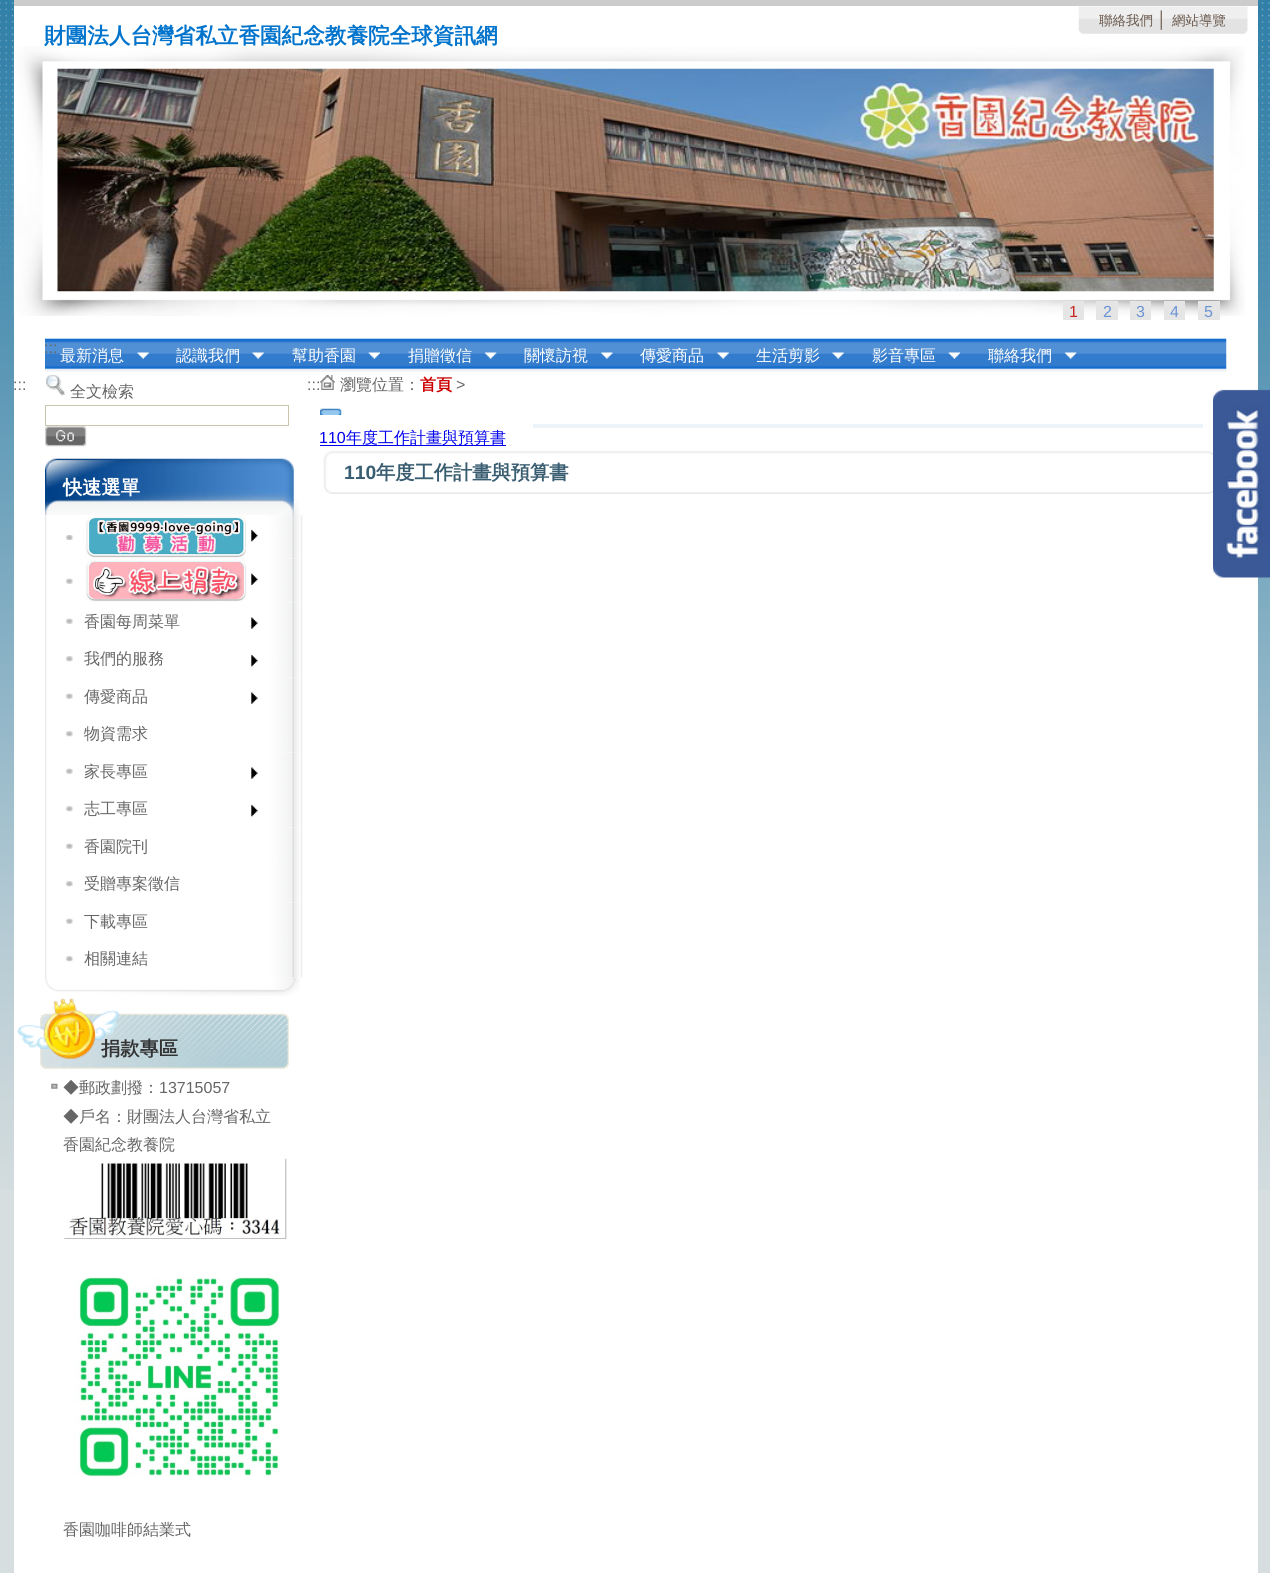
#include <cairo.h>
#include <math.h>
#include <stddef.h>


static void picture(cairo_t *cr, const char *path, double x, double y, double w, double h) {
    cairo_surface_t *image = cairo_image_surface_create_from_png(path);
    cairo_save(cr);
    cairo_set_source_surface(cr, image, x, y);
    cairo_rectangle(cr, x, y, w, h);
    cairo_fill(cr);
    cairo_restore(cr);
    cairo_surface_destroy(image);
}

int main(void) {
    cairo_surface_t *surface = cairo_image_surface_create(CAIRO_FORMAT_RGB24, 1270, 1573);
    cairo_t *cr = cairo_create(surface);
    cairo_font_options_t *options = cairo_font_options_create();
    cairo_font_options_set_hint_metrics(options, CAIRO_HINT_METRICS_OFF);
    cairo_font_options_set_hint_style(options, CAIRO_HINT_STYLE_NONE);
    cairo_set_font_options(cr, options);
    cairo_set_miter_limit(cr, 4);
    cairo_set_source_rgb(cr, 0.843, 0.871, 0.875);
    cairo_paint(cr);
    picture(cr, "img1.png", 0, 0, 1270, 1190);
    cairo_set_source_rgb(cr, 1, 1, 1);
    cairo_rectangle(cr, 14, 6, 1244, 1567);
    cairo_fill(cr);
    cairo_set_source_rgb(cr, 0.8, 0.8, 0.8);
    cairo_rectangle(cr, 14, 0, 1244, 6);
    cairo_fill(cr);
    picture(cr, "img2.png", 1078, 6, 170, 28);
    cairo_select_font_face(cr, "WenQuanYi Zen Hei Medium", CAIRO_FONT_SLANT_NORMAL, CAIRO_FONT_WEIGHT_NORMAL);
    cairo_set_font_size(cr, 13.5);
    cairo_set_source_rgb(cr, 0.412, 0.341, 0.294);
    cairo_move_to(cr, 1099, 25);
    cairo_show_text(cr, "聯絡我們");
    cairo_select_font_face(cr, "Liberation Sans", CAIRO_FONT_SLANT_NORMAL, CAIRO_FONT_WEIGHT_NORMAL);
    cairo_set_font_size(cr, 16);
    cairo_move_to(cr, 1157, 25);
    cairo_show_text(cr, "│");
    cairo_select_font_face(cr, "WenQuanYi Zen Hei Medium", CAIRO_FONT_SLANT_NORMAL, CAIRO_FONT_WEIGHT_NORMAL);
    cairo_set_font_size(cr, 13.5);
    cairo_move_to(cr, 1172, 25);
    cairo_show_text(cr, "網站導覽");
    picture(cr, "img3.png", 13, 46, 1232, 270);
    cairo_select_font_face(cr, "WenQuanYi Zen Hei", CAIRO_FONT_SLANT_NORMAL, CAIRO_FONT_WEIGHT_BOLD);
    cairo_set_font_size(cr, 21.6);
    cairo_set_source_rgb(cr, 0, 0.451, 0.8);
    cairo_move_to(cr, 44, 43);
    cairo_show_text(cr, "財團法人台灣省私立香園紀念教養院全球資訊網");
    picture(cr, "img4.png", 57, 68, 1157, 224);
    cairo_set_source_rgb(cr, 0.898, 0.898, 0.898);
    cairo_rectangle(cr, 1063, 301, 21, 19);
    cairo_fill(cr);
    cairo_select_font_face(cr, "Liberation Sans", CAIRO_FONT_SLANT_NORMAL, CAIRO_FONT_WEIGHT_NORMAL);
    cairo_set_font_size(cr, 16);
    cairo_set_source_rgb(cr, 0.776, 0.149, 0.122);
    cairo_move_to(cr, 1069, 317);
    cairo_show_text(cr, "1");
    cairo_set_source_rgb(cr, 0.898, 0.898, 0.898);
    cairo_rectangle(cr, 1096, 301, 22, 19);
    cairo_fill(cr);
    cairo_set_source_rgb(cr, 0.416, 0.576, 0.831);
    cairo_move_to(cr, 1103, 317);
    cairo_show_text(cr, "2");
    cairo_set_source_rgb(cr, 0.898, 0.898, 0.898);
    cairo_rectangle(cr, 1130, 301, 21, 19);
    cairo_fill(cr);
    cairo_set_source_rgb(cr, 0.416, 0.576, 0.831);
    cairo_move_to(cr, 1136, 317);
    cairo_show_text(cr, "3");
    cairo_set_source_rgb(cr, 0.898, 0.898, 0.898);
    cairo_rectangle(cr, 1164, 301, 21, 19);
    cairo_fill(cr);
    cairo_set_source_rgb(cr, 0.416, 0.576, 0.831);
    cairo_move_to(cr, 1170, 317);
    cairo_show_text(cr, "4");
    cairo_set_source_rgb(cr, 0.898, 0.898, 0.898);
    cairo_rectangle(cr, 1198, 301, 22, 19);
    cairo_fill(cr);
    cairo_set_source_rgb(cr, 0.416, 0.576, 0.831);
    cairo_move_to(cr, 1204, 317);
    cairo_show_text(cr, "5");
    picture(cr, "img5.png", 45, 338, 1182, 34);
    cairo_set_source_rgb(cr, 0.4, 0.4, 0.4);
    cairo_move_to(cr, 44, 353);
    cairo_show_text(cr, ":::");
    cairo_select_font_face(cr, "WenQuanYi Zen Hei Medium", CAIRO_FONT_SLANT_NORMAL, CAIRO_FONT_WEIGHT_NORMAL);
    cairo_set_source_rgb(cr, 1, 1, 1);
    cairo_move_to(cr, 60, 361);
    cairo_show_text(cr, "最新消息");
    picture(cr, "img6.png", 137, 352, 12, 7);
    cairo_move_to(cr, 176, 361);
    cairo_show_text(cr, "認識我們");
    picture(cr, "img6.png", 252, 352, 12, 7);
    cairo_move_to(cr, 292, 361);
    cairo_show_text(cr, "幫助香園");
    picture(cr, "img7.png", 368, 352, 12, 7);
    cairo_move_to(cr, 408, 361);
    cairo_show_text(cr, "捐贈徵信");
    picture(cr, "img8.png", 484, 352, 13, 7);
    cairo_move_to(cr, 524, 361);
    cairo_show_text(cr, "關懷訪視");
    picture(cr, "img9.png", 601, 352, 12, 7);
    cairo_move_to(cr, 640, 361);
    cairo_show_text(cr, "傳愛商品");
    picture(cr, "img6.png", 717, 352, 12, 7);
    cairo_move_to(cr, 756, 361);
    cairo_show_text(cr, "生活剪影");
    picture(cr, "img6.png", 832, 352, 12, 7);
    cairo_move_to(cr, 872, 361);
    cairo_show_text(cr, "影音專區");
    picture(cr, "img7.png", 948, 352, 12, 7);
    cairo_move_to(cr, 988, 361);
    cairo_show_text(cr, "聯絡我們");
    picture(cr, "img10.png", 1064, 352, 13, 7);
    cairo_select_font_face(cr, "Liberation Sans", CAIRO_FONT_SLANT_NORMAL, CAIRO_FONT_WEIGHT_NORMAL);
    cairo_set_source_rgb(cr, 0.4, 0.4, 0.4);
    cairo_move_to(cr, 13, 390);
    cairo_show_text(cr, ":::");
    picture(cr, "img11.png", 46, 375, 20, 21);
    cairo_select_font_face(cr, "WenQuanYi Zen Hei Medium", CAIRO_FONT_SLANT_NORMAL, CAIRO_FONT_WEIGHT_NORMAL);
    cairo_move_to(cr, 70, 397);
    cairo_show_text(cr, "全文檢索");
    cairo_rectangle(cr, 45.5, 405.5, 243, 20);
    cairo_set_source_rgb(cr, 0.788, 0.773, 0.686);
    cairo_set_line_width(cr, 1);
    cairo_stroke(cr);
    picture(cr, "img12.png", 45, 426, 42, 21);
    picture(cr, "img13.png", 45, 458, 255, 57);
    cairo_select_font_face(cr, "WenQuanYi Zen Hei", CAIRO_FONT_SLANT_NORMAL, CAIRO_FONT_WEIGHT_BOLD);
    cairo_set_font_size(cr, 19.25);
    cairo_set_source_rgb(cr, 1, 1, 1);
    cairo_move_to(cr, 63, 494);
    cairo_show_text(cr, "快速選單");
    picture(cr, "img14.png", 45, 977, 255, 19);
    picture(cr, "img15.png", 45, 515, 258, 44);
    picture(cr, "img16.png", 66, 535, 7, 5);
    picture(cr, "img17.png", 85, 515, 161, 44);
    picture(cr, "img18.png", 251, 529, 7, 13);
    picture(cr, "img19.png", 45, 559, 258, 44);
    picture(cr, "img20.png", 66, 578, 7, 6);
    picture(cr, "img21.png", 85, 559, 162, 44);
    picture(cr, "img22.png", 251, 573, 7, 12);
    picture(cr, "img23.png", 45, 602, 258, 38);
    picture(cr, "img20.png", 66, 618, 7, 6);
    cairo_select_font_face(cr, "WenQuanYi Zen Hei Medium", CAIRO_FONT_SLANT_NORMAL, CAIRO_FONT_WEIGHT_NORMAL);
    cairo_set_font_size(cr, 16);
    cairo_set_source_rgb(cr, 0.4, 0.4, 0.4);
    cairo_move_to(cr, 84, 627);
    cairo_show_text(cr, "香園每周菜單");
    picture(cr, "img24.png", 251, 617, 7, 12);
    picture(cr, "img25.png", 45, 640, 258, 38);
    picture(cr, "img26.png", 66, 656, 7, 6);
    cairo_move_to(cr, 84, 664);
    cairo_show_text(cr, "我們的服務");
    picture(cr, "img18.png", 251, 654, 7, 13);
    picture(cr, "img27.png", 45, 677, 258, 38);
    picture(cr, "img20.png", 66, 693, 7, 6);
    cairo_move_to(cr, 84, 702);
    cairo_show_text(cr, "傳愛商品");
    picture(cr, "img24.png", 251, 692, 7, 12);
    picture(cr, "img25.png", 45, 715, 258, 38);
    picture(cr, "img26.png", 66, 731, 7, 6);
    cairo_move_to(cr, 84, 739);
    cairo_show_text(cr, "物資需求");
    picture(cr, "img27.png", 45, 752, 258, 38);
    picture(cr, "img20.png", 66, 768, 7, 6);
    cairo_move_to(cr, 84, 777);
    cairo_show_text(cr, "家長專區");
    picture(cr, "img24.png", 251, 767, 7, 12);
    picture(cr, "img25.png", 45, 790, 258, 38);
    picture(cr, "img26.png", 66, 806, 7, 6);
    cairo_move_to(cr, 84, 814);
    cairo_show_text(cr, "志工專區");
    picture(cr, "img18.png", 251, 804, 7, 13);
    picture(cr, "img27.png", 45, 827, 258, 38);
    picture(cr, "img20.png", 66, 843, 7, 6);
    cairo_move_to(cr, 84, 852);
    cairo_show_text(cr, "香園院刊");
    picture(cr, "img25.png", 45, 865, 258, 38);
    picture(cr, "img26.png", 66, 881, 7, 6);
    cairo_move_to(cr, 84, 889);
    cairo_show_text(cr, "受贈專案徵信");
    picture(cr, "img27.png", 45, 902, 258, 38);
    picture(cr, "img20.png", 66, 918, 7, 6);
    cairo_move_to(cr, 84, 927);
    cairo_show_text(cr, "下載專區");
    picture(cr, "img28.png", 45, 940, 258, 38);
    picture(cr, "img26.png", 66, 956, 7, 6);
    cairo_move_to(cr, 84, 964);
    cairo_show_text(cr, "相關連結");
    picture(cr, "img29.png", 17, 998, 272, 71);
    cairo_select_font_face(cr, "WenQuanYi Zen Hei", CAIRO_FONT_SLANT_NORMAL, CAIRO_FONT_WEIGHT_BOLD);
    cairo_set_font_size(cr, 19.25);
    cairo_set_source_rgb(cr, 0.2, 0.2, 0.2);
    cairo_move_to(cr, 101, 1055);
    cairo_show_text(cr, "捐款專區");
    picture(cr, "img30.png", 51, 1083, 7, 6);
    cairo_select_font_face(cr, "WenQuanYi Zen Hei Medium", CAIRO_FONT_SLANT_NORMAL, CAIRO_FONT_WEIGHT_NORMAL);
    cairo_set_font_size(cr, 16);
    cairo_set_source_rgb(cr, 0.4, 0.4, 0.4);
    cairo_move_to(cr, 63, 1093);
    cairo_show_text(cr, "◆郵政劃撥：");
    cairo_select_font_face(cr, "Liberation Sans", CAIRO_FONT_SLANT_NORMAL, CAIRO_FONT_WEIGHT_NORMAL);
    cairo_move_to(cr, 159, 1093);
    cairo_show_text(cr, "13715057");
    cairo_select_font_face(cr, "WenQuanYi Zen Hei Medium", CAIRO_FONT_SLANT_NORMAL, CAIRO_FONT_WEIGHT_NORMAL);
    cairo_move_to(cr, 63, 1122);
    cairo_show_text(cr, "◆戶名：財團法人台灣省私立");
    cairo_move_to(cr, 63, 1150);
    cairo_show_text(cr, "香園紀念教養院");
    picture(cr, "img31.png", 63, 1158, 224, 81);
    picture(cr, "img32.png", 74, 1277, 206, 201);
    cairo_move_to(cr, 63, 1535);
    cairo_show_text(cr, "香園咖啡師結業式");
    cairo_select_font_face(cr, "Liberation Sans", CAIRO_FONT_SLANT_NORMAL, CAIRO_FONT_WEIGHT_NORMAL);
    cairo_move_to(cr, 307, 390);
    cairo_show_text(cr, ":::");
    picture(cr, "img33.png", 320, 375, 15, 15);
    cairo_select_font_face(cr, "WenQuanYi Zen Hei Medium", CAIRO_FONT_SLANT_NORMAL, CAIRO_FONT_WEIGHT_NORMAL);
    cairo_move_to(cr, 340, 390);
    cairo_show_text(cr, "瀏覽位置：");
    cairo_select_font_face(cr, "WenQuanYi Zen Hei", CAIRO_FONT_SLANT_NORMAL, CAIRO_FONT_WEIGHT_BOLD);
    cairo_set_source_rgb(cr, 0.8, 0, 0);
    cairo_move_to(cr, 420, 390);
    cairo_show_text(cr, "首頁");
    cairo_select_font_face(cr, "Liberation Sans", CAIRO_FONT_SLANT_NORMAL, CAIRO_FONT_WEIGHT_NORMAL);
    cairo_set_source_rgb(cr, 0.4, 0.4, 0.4);
    cairo_move_to(cr, 456, 390);
    cairo_show_text(cr, ">");
    picture(cr, "img34.png", 320, 408, 22, 7);
    cairo_set_source_rgb(cr, 0.922, 0.957, 0.98);
    cairo_rectangle(cr, 533, 424, 670, 4);
    cairo_fill(cr);
    cairo_set_source_rgb(cr, 0, 0, 0.933);
    cairo_move_to(cr, 319, 443);
    cairo_show_text(cr, "110");
    cairo_rectangle(cr, 320, 445, 186, 1);
    cairo_fill(cr);
    cairo_select_font_face(cr, "WenQuanYi Zen Hei Medium", CAIRO_FONT_SLANT_NORMAL, CAIRO_FONT_WEIGHT_NORMAL);
    cairo_move_to(cr, 346, 443);
    cairo_show_text(cr, "年度工作計畫與預算書");
    picture(cr, "img35.png", 323, 451, 890, 43);
    cairo_select_font_face(cr, "Liberation Sans", CAIRO_FONT_SLANT_NORMAL, CAIRO_FONT_WEIGHT_BOLD);
    cairo_set_font_size(cr, 19.25);
    cairo_set_source_rgb(cr, 0.22, 0.361, 0.439);
    cairo_move_to(cr, 344, 479);
    cairo_show_text(cr, "110");
    cairo_select_font_face(cr, "WenQuanYi Zen Hei", CAIRO_FONT_SLANT_NORMAL, CAIRO_FONT_WEIGHT_BOLD);
    cairo_move_to(cr, 376, 479);
    cairo_show_text(cr, "年度工作計畫與預算書");
    picture(cr, "img36.png", 1213, 389, 57, 189);
    cairo_surface_write_to_png(surface, "page.png");
    cairo_font_options_destroy(options);
    cairo_destroy(cr);
    cairo_surface_destroy(surface);
    return 0;
}
